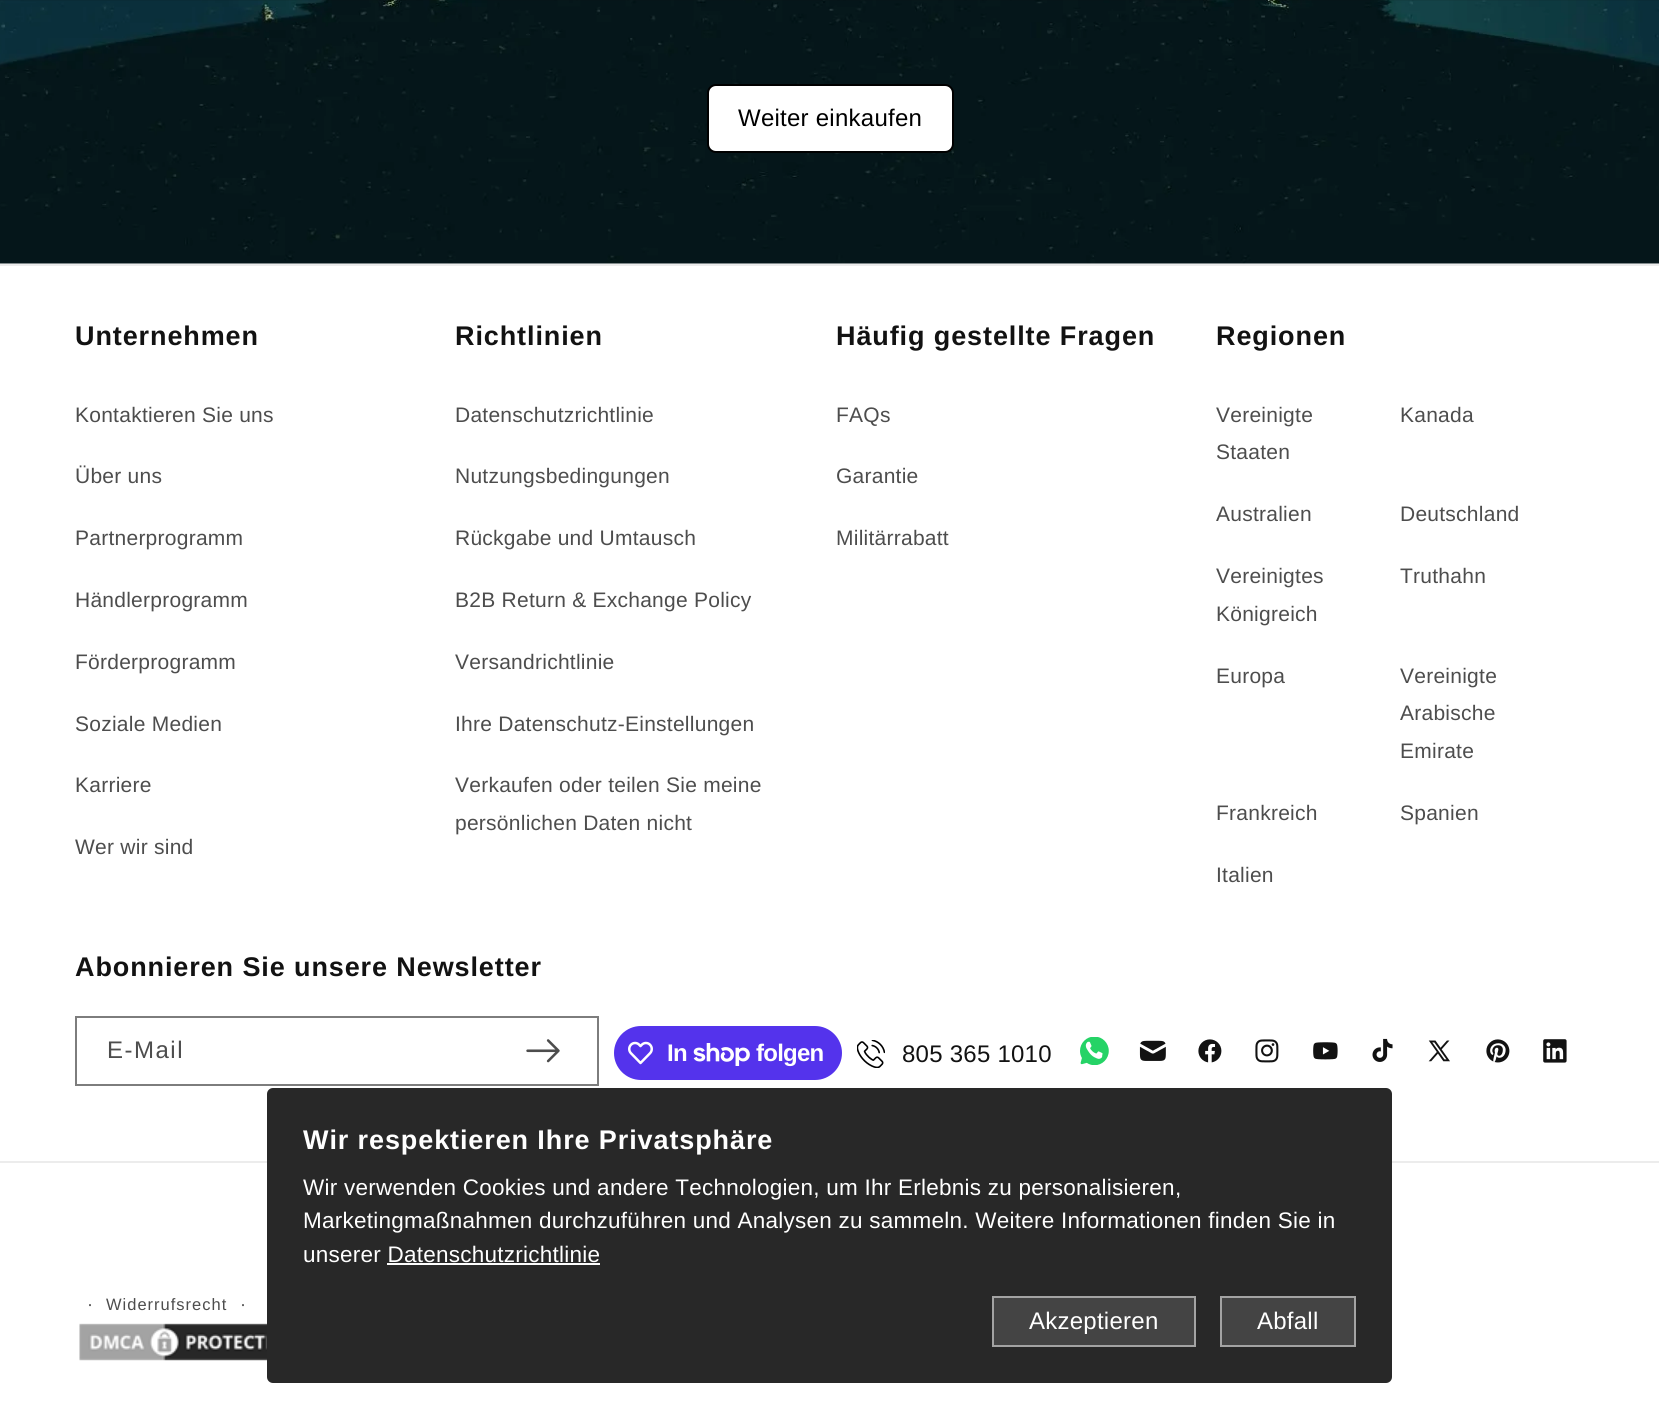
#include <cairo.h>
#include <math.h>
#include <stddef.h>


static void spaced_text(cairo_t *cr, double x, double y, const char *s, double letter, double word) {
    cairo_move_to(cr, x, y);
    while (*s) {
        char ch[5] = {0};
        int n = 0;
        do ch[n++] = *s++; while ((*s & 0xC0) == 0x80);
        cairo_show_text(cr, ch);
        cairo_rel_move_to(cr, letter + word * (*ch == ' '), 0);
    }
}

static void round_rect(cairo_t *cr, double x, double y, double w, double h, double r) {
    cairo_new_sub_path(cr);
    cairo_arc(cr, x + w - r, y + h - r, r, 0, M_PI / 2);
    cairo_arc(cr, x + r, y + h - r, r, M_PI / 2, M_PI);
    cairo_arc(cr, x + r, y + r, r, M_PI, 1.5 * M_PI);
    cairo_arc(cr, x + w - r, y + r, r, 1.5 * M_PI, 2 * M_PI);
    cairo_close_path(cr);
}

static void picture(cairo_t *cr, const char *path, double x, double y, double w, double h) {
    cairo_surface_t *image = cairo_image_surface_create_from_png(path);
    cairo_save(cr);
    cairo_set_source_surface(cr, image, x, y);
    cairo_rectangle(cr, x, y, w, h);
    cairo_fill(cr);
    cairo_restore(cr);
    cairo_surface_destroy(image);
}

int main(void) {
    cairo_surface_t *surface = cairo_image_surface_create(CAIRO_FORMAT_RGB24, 1659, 1418);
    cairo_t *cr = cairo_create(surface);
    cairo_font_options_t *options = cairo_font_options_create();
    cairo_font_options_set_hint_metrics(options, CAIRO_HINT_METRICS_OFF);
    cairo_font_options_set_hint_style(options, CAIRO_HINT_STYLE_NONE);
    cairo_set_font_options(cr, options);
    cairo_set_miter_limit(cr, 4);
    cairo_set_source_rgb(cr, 1, 1, 1);
    cairo_paint(cr);
    picture(cr, "img1.png", 0, 0, 1659, 264);
    cairo_set_source_rgba(cr, 0.071, 0.071, 0.071, 0.08);
    cairo_rectangle(cr, 0, 0, 1659, 1);
    cairo_fill(cr);
    cairo_set_source_rgb(cr, 1, 1, 1);
    round_rect(cr, 708, 85, 245, 67, 8);
    cairo_fill_preserve(cr);
    cairo_set_source_rgb(cr, 0, 0, 0);
    cairo_stroke(cr);
    cairo_select_font_face(cr, "Liberation Sans", CAIRO_FONT_SLANT_NORMAL, CAIRO_FONT_WEIGHT_NORMAL);
    cairo_set_font_size(cr, 24);
    spaced_text(cr, 738, 126, "Weiter einkaufen", 0.25, 0);
    cairo_set_source_rgb(cr, 0.925, 0.925, 0.925);
    cairo_rectangle(cr, 0, 264, 1659, 2);
    cairo_fill(cr);
    cairo_select_font_face(cr, "Liberation Sans", CAIRO_FONT_SLANT_NORMAL, CAIRO_FONT_WEIGHT_BOLD);
    cairo_set_font_size(cr, 27);
    cairo_set_source_rgb(cr, 0.071, 0.071, 0.071);
    spaced_text(cr, 75, 345, "Unternehmen", 0.9, 0);
    cairo_select_font_face(cr, "Liberation Sans", CAIRO_FONT_SLANT_NORMAL, CAIRO_FONT_WEIGHT_NORMAL);
    cairo_set_font_size(cr, 21);
    cairo_set_source_rgb(cr, 0.302, 0.302, 0.302);
    spaced_text(cr, 75, 422, "Kontaktieren Sie uns", 0.25, 0);
    spaced_text(cr, 75, 483, "Über uns", 0.25, 0);
    spaced_text(cr, 75, 545, "Partnerprogramm", 0.25, 0);
    spaced_text(cr, 75, 607, "Händlerprogramm", 0.25, 0);
    spaced_text(cr, 75, 669, "Förderprogramm", 0.25, 0);
    spaced_text(cr, 75, 731, "Soziale Medien", 0.25, 0);
    spaced_text(cr, 75, 792, "Karriere", 0.25, 0);
    spaced_text(cr, 75, 854, "Wer wir sind", 0.25, 0);
    cairo_select_font_face(cr, "Liberation Sans", CAIRO_FONT_SLANT_NORMAL, CAIRO_FONT_WEIGHT_BOLD);
    cairo_set_font_size(cr, 27);
    cairo_set_source_rgb(cr, 0.071, 0.071, 0.071);
    spaced_text(cr, 455, 345, "Richtlinien", 0.9, 0);
    cairo_select_font_face(cr, "Liberation Sans", CAIRO_FONT_SLANT_NORMAL, CAIRO_FONT_WEIGHT_NORMAL);
    cairo_set_font_size(cr, 21);
    cairo_set_source_rgb(cr, 0.302, 0.302, 0.302);
    spaced_text(cr, 455, 422, "Datenschutzrichtlinie", 0.25, 0);
    spaced_text(cr, 455, 483, "Nutzungsbedingungen", 0.25, 0);
    spaced_text(cr, 455, 545, "Rückgabe und Umtausch", 0.25, 0);
    spaced_text(cr, 455, 607, "B2B Return & Exchange Policy", 0.25, 0);
    spaced_text(cr, 455, 669, "Versandrichtlinie", 0.25, 0);
    spaced_text(cr, 455, 731, "Ihre Datenschutz-Einstellungen", 0.25, 0);
    spaced_text(cr, 455, 792, "Verkaufen oder teilen Sie meine", 0.25, 0);
    spaced_text(cr, 455, 830, "persönlichen Daten nicht", 0.25, 0);
    cairo_select_font_face(cr, "Liberation Sans", CAIRO_FONT_SLANT_NORMAL, CAIRO_FONT_WEIGHT_BOLD);
    cairo_set_font_size(cr, 27);
    cairo_set_source_rgb(cr, 0.071, 0.071, 0.071);
    spaced_text(cr, 836, 345, "Häufig gestellte Fragen", 0.9, 0);
    cairo_select_font_face(cr, "Liberation Sans", CAIRO_FONT_SLANT_NORMAL, CAIRO_FONT_WEIGHT_NORMAL);
    cairo_set_font_size(cr, 21);
    cairo_set_source_rgb(cr, 0.302, 0.302, 0.302);
    spaced_text(cr, 836, 422, "FAQs", 0.25, 0);
    spaced_text(cr, 836, 483, "Garantie", 0.25, 0);
    spaced_text(cr, 836, 545, "Militärrabatt", 0.25, 0);
    cairo_select_font_face(cr, "Liberation Sans", CAIRO_FONT_SLANT_NORMAL, CAIRO_FONT_WEIGHT_BOLD);
    cairo_set_font_size(cr, 27);
    cairo_set_source_rgb(cr, 0.071, 0.071, 0.071);
    spaced_text(cr, 1216, 345, "Regionen", 0.9, 0);
    cairo_select_font_face(cr, "Liberation Sans", CAIRO_FONT_SLANT_NORMAL, CAIRO_FONT_WEIGHT_NORMAL);
    cairo_set_font_size(cr, 21);
    cairo_set_source_rgb(cr, 0.302, 0.302, 0.302);
    spaced_text(cr, 1216, 422, "Vereinigte", 0.25, 0);
    spaced_text(cr, 1216, 459, "Staaten", 0.25, 0);
    spaced_text(cr, 1400, 422, "Kanada", 0.25, 0);
    spaced_text(cr, 1216, 521, "Australien", 0.25, 0);
    spaced_text(cr, 1400, 521, "Deutschland", 0.25, 0);
    spaced_text(cr, 1216, 583, "Vereinigtes", 0.25, 0);
    spaced_text(cr, 1216, 621, "Königreich", 0.25, 0);
    spaced_text(cr, 1400, 583, "Truthahn", 0.25, 0);
    spaced_text(cr, 1216, 683, "Europa", 0.25, 0);
    spaced_text(cr, 1400, 683, "Vereinigte", 0.25, 0);
    spaced_text(cr, 1400, 720, "Arabische", 0.25, 0);
    spaced_text(cr, 1400, 758, "Emirate", 0.25, 0);
    spaced_text(cr, 1216, 820, "Frankreich", 0.25, 0);
    spaced_text(cr, 1400, 820, "Spanien", 0.25, 0);
    spaced_text(cr, 1216, 882, "Italien", 0.25, 0);
    cairo_select_font_face(cr, "Liberation Sans", CAIRO_FONT_SLANT_NORMAL, CAIRO_FONT_WEIGHT_BOLD);
    cairo_set_font_size(cr, 27);
    cairo_set_source_rgb(cr, 0.071, 0.071, 0.071);
    spaced_text(cr, 75, 976, "Abonnieren Sie unsere Newsletter", 0.9, 0);
    cairo_rectangle(cr, 76, 1017, 522, 68);
    cairo_set_source_rgb(cr, 0.49, 0.49, 0.49);
    cairo_stroke(cr);
    cairo_select_font_face(cr, "Liberation Sans", CAIRO_FONT_SLANT_NORMAL, CAIRO_FONT_WEIGHT_NORMAL);
    cairo_set_font_size(cr, 24);
    cairo_set_source_rgb(cr, 0.302, 0.302, 0.302);
    spaced_text(cr, 107, 1058, "E-Mail", 1.5, 0);
    picture(cr, "img2.png", 526, 1039, 34, 24);
    cairo_set_source_rgb(cr, 0.329, 0.2, 0.922);
    round_rect(cr, 614, 1026, 228, 54, 27);
    cairo_fill(cr);
    picture(cr, "img3.png", 628, 1041, 25, 24);
    cairo_select_font_face(cr, "Liberation Sans", CAIRO_FONT_SLANT_NORMAL, CAIRO_FONT_WEIGHT_BOLD);
    cairo_set_source_rgb(cr, 1, 1, 1);
    spaced_text(cr, 667, 1061, "In", -0.75, 0);
    picture(cr, "img4.png", 693, 1043, 57, 23);
    spaced_text(cr, 756, 1061, "folgen", -0.75, 0);
    picture(cr, "img5.png", 857, 1040, 28, 28);
    cairo_select_font_face(cr, "Liberation Sans", CAIRO_FONT_SLANT_NORMAL, CAIRO_FONT_WEIGHT_NORMAL);
    cairo_set_source_rgb(cr, 0.071, 0.071, 0.071);
    spaced_text(cr, 902, 1062, "805 365 1010", 0.25, 0);
    picture(cr, "img6.png", 1080, 1037, 29, 28);
    picture(cr, "img7.png", 1139, 1040, 27, 21);
    picture(cr, "img8.png", 1198, 1039, 24, 24);
    picture(cr, "img9.png", 1255, 1039, 24, 24);
    picture(cr, "img10.png", 1313, 1042, 25, 18);
    picture(cr, "img11.png", 1372, 1038, 21, 24);
    picture(cr, "img12.png", 1428, 1040, 22, 22);
    picture(cr, "img13.png", 1486, 1039, 24, 24);
    picture(cr, "img14.png", 1543, 1039, 24, 24);
    cairo_set_source_rgb(cr, 0.925, 0.925, 0.925);
    cairo_rectangle(cr, 0, 1161, 1659, 2);
    cairo_fill(cr);
    cairo_set_font_size(cr, 18);
    cairo_set_source_rgb(cr, 0.302, 0.302, 0.302);
    spaced_text(cr, 87, 1310, "·", 1, 0);
    cairo_set_font_size(cr, 16.5);
    spaced_text(cr, 106, 1310, "Widerrufsrecht", 1, 0);
    cairo_set_font_size(cr, 18);
    spaced_text(cr, 240, 1310, "·", 1, 0);
    picture(cr, "img15.png", 79, 1323, 188, 38);
    cairo_set_source_rgb(cr, 0.157, 0.157, 0.157);
    round_rect(cr, 267, 1088, 1125, 295, 6);
    cairo_fill(cr);
    cairo_select_font_face(cr, "Liberation Sans", CAIRO_FONT_SLANT_NORMAL, CAIRO_FONT_WEIGHT_BOLD);
    cairo_set_font_size(cr, 27);
    cairo_set_source_rgb(cr, 1, 1, 1);
    spaced_text(cr, 303, 1149, "Wir respektieren Ihre Privatsphäre", 0.9, 0);
    cairo_select_font_face(cr, "Liberation Sans", CAIRO_FONT_SLANT_NORMAL, CAIRO_FONT_WEIGHT_NORMAL);
    cairo_set_font_size(cr, 22.5);
    spaced_text(cr, 303, 1195, "Wir verwenden Cookies und andere Technologien, um Ihr Erlebnis zu personalisieren,", 0.25, 0);
    spaced_text(cr, 303, 1228, "Marketingmaßnahmen durchzuführen und Analysen zu sammeln. Weitere Informationen finden Sie in", 0.25, 0);
    spaced_text(cr, 303, 1262, "unserer Datenschutzrichtlinie", 0.25, 0);
    cairo_set_source_rgb(cr, 0.992, 0.992, 0.992);
    cairo_rectangle(cr, 387, 1263, 213, 2);
    cairo_fill(cr);
    cairo_set_source_rgb(cr, 0.267, 0.267, 0.267);
    cairo_rectangle(cr, 993, 1297, 202, 49);
    cairo_fill_preserve(cr);
    cairo_set_source_rgb(cr, 0.639, 0.639, 0.639);
    cairo_stroke(cr);
    cairo_set_font_size(cr, 24);
    cairo_set_source_rgb(cr, 1, 1, 1);
    spaced_text(cr, 1029, 1329, "Akzeptieren", 0.25, 0);
    cairo_set_source_rgb(cr, 0.267, 0.267, 0.267);
    cairo_rectangle(cr, 1221, 1297, 134, 49);
    cairo_fill_preserve(cr);
    cairo_set_source_rgb(cr, 0.639, 0.639, 0.639);
    cairo_stroke(cr);
    cairo_set_source_rgb(cr, 1, 1, 1);
    spaced_text(cr, 1257, 1329, "Abfall", 0.25, 0);
    cairo_surface_write_to_png(surface, "page.png");
    cairo_font_options_destroy(options);
    cairo_destroy(cr);
    cairo_surface_destroy(surface);
    return 0;
}
